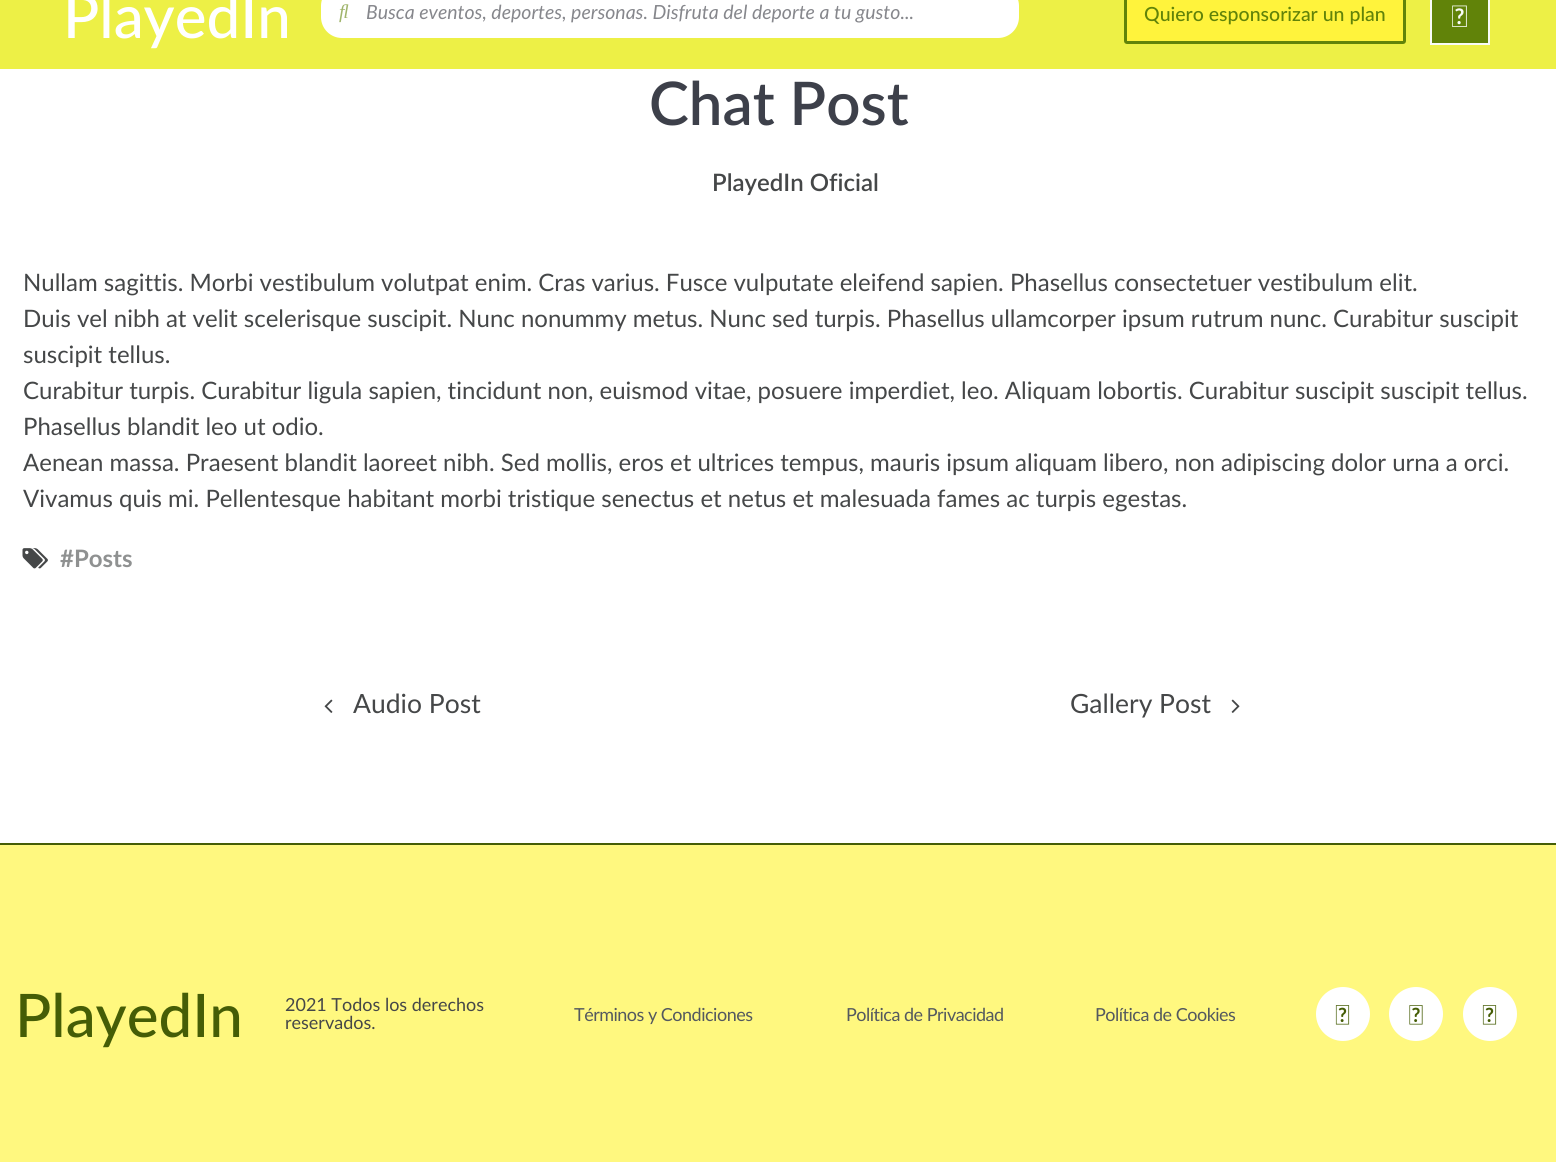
#include <cairo.h>
#include <math.h>
#include <stddef.h>


static void spaced_text(cairo_t *cr, double x, double y, const char *s, double letter, double word) {
    cairo_move_to(cr, x, y);
    while (*s) {
        char ch[5] = {0};
        int n = 0;
        do ch[n++] = *s++; while ((*s & 0xC0) == 0x80);
        cairo_show_text(cr, ch);
        cairo_rel_move_to(cr, letter + word * (*ch == ' '), 0);
    }
}

static void round_rect(cairo_t *cr, double x, double y, double w, double h, double r) {
    cairo_new_sub_path(cr);
    cairo_arc(cr, x + w - r, y + h - r, r, 0, M_PI / 2);
    cairo_arc(cr, x + r, y + h - r, r, M_PI / 2, M_PI);
    cairo_arc(cr, x + r, y + r, r, M_PI, 1.5 * M_PI);
    cairo_arc(cr, x + w - r, y + r, r, 1.5 * M_PI, 2 * M_PI);
    cairo_close_path(cr);
}

static void picture(cairo_t *cr, const char *path, double x, double y, double w, double h) {
    cairo_surface_t *image = cairo_image_surface_create_from_png(path);
    cairo_save(cr);
    cairo_set_source_surface(cr, image, x, y);
    cairo_rectangle(cr, x, y, w, h);
    cairo_fill(cr);
    cairo_restore(cr);
    cairo_surface_destroy(image);
}

int main(void) {
    cairo_surface_t *surface = cairo_image_surface_create(CAIRO_FORMAT_RGB24, 1556, 1162);
    cairo_t *cr = cairo_create(surface);
    cairo_font_options_t *options = cairo_font_options_create();
    cairo_font_options_set_hint_metrics(options, CAIRO_HINT_METRICS_OFF);
    cairo_font_options_set_hint_style(options, CAIRO_HINT_STYLE_NONE);
    cairo_set_font_options(cr, options);
    cairo_set_miter_limit(cr, 4);
    cairo_set_source_rgb(cr, 1, 1, 1);
    cairo_paint(cr);
    cairo_set_source_rgb(cr, 0.929, 0.941, 0.275);
    cairo_rectangle(cr, 0, 0, 1556, 69);
    cairo_fill(cr);
    cairo_select_font_face(cr, "Lato Medium", CAIRO_FONT_SLANT_NORMAL, CAIRO_FONT_WEIGHT_NORMAL);
    cairo_set_font_size(cr, 60);
    cairo_set_source_rgb(cr, 1, 1, 1);
    cairo_move_to(cr, 63, 38);
    cairo_show_text(cr, "PlayedIn");
    round_rect(cr, 321, -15, 698, 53, 21);
    cairo_fill(cr);
    picture(cr, "img1.png", 339, 4, 10, 19);
    cairo_select_font_face(cr, "Lato", CAIRO_FONT_SLANT_ITALIC, CAIRO_FONT_WEIGHT_NORMAL);
    cairo_set_font_size(cr, 19.5);
    cairo_set_source_rgb(cr, 0.525, 0.529, 0.549);
    cairo_move_to(cr, 366, 19);
    cairo_show_text(cr, "Busca eventos, deportes, personas. Disfruta del deporte a tu gusto...");
    cairo_set_source_rgb(cr, 1, 0.953, 0.235);
    round_rect(cr, 1125.5, -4.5, 279, 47, 1.5);
    cairo_fill_preserve(cr);
    cairo_set_source_rgb(cr, 0.38, 0.514, 0.039);
    cairo_set_line_width(cr, 3);
    cairo_stroke(cr);
    cairo_select_font_face(cr, "Lato Medium", CAIRO_FONT_SLANT_NORMAL, CAIRO_FONT_WEIGHT_NORMAL);
    cairo_move_to(cr, 1144, 21);
    cairo_show_text(cr, "Quiero esponsorizar un plan");
    cairo_rectangle(cr, 1431, -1, 58, 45);
    cairo_fill_preserve(cr);
    cairo_set_source_rgb(cr, 0.973, 0.988, 0.969);
    cairo_set_line_width(cr, 2);
    cairo_stroke(cr);
    picture(cr, "img2.png", 1452, 5, 15, 22);
    cairo_select_font_face(cr, "Lato SemiBold", CAIRO_FONT_SLANT_NORMAL, CAIRO_FONT_WEIGHT_NORMAL);
    cairo_set_font_size(cr, 60);
    cairo_set_source_rgb(cr, 0.239, 0.251, 0.29);
    cairo_move_to(cr, 649, 125);
    cairo_show_text(cr, "Chat Post");
    cairo_set_font_size(cr, 24);
    cairo_set_source_rgb(cr, 0.271, 0.278, 0.282);
    cairo_move_to(cr, 712, 191);
    cairo_show_text(cr, "PlayedIn Oficial");
    cairo_select_font_face(cr, "Lato", CAIRO_FONT_SLANT_NORMAL, CAIRO_FONT_WEIGHT_NORMAL);
    cairo_move_to(cr, 23, 291);
    cairo_show_text(cr, "Nullam sagittis. Morbi vestibulum volutpat enim. Cras varius. Fusce vulputate eleifend sapien. Phasellus consectetuer vestibulum elit.");
    cairo_move_to(cr, 23, 327);
    cairo_show_text(cr, "Duis vel nibh at velit scelerisque suscipit. Nunc nonummy metus. Nunc sed turpis. Phasellus ullamcorper ipsum rutrum nunc. Curabitur suscipit");
    cairo_move_to(cr, 23, 363);
    cairo_show_text(cr, "suscipit tellus.");
    cairo_move_to(cr, 23, 399);
    cairo_show_text(cr, "Curabitur turpis. Curabitur ligula sapien, tincidunt non, euismod vitae, posuere imperdiet, leo. Aliquam lobortis. Curabitur suscipit suscipit tellus.");
    cairo_move_to(cr, 23, 435);
    cairo_show_text(cr, "Phasellus blandit leo ut odio.");
    cairo_move_to(cr, 23, 471);
    cairo_show_text(cr, "Aenean massa. Praesent blandit laoreet nibh. Sed mollis, eros et ultrices tempus, mauris ipsum aliquam libero, non adipiscing dolor urna a orci.");
    cairo_move_to(cr, 23, 507);
    cairo_show_text(cr, "Vivamus quis mi. Pellentesque habitant morbi tristique senectus et netus et malesuada fames ac turpis egestas.");
    picture(cr, "img3.png", 22, 548, 26, 21);
    cairo_select_font_face(cr, "Lato", CAIRO_FONT_SLANT_NORMAL, CAIRO_FONT_WEIGHT_BOLD);
    cairo_set_source_rgb(cr, 0.561, 0.569, 0.569);
    cairo_move_to(cr, 60, 567);
    cairo_show_text(cr, "#Posts");
    picture(cr, "img4.png", 324, 699, 9, 14);
    cairo_select_font_face(cr, "Lato", CAIRO_FONT_SLANT_NORMAL, CAIRO_FONT_WEIGHT_NORMAL);
    cairo_set_font_size(cr, 26.5);
    cairo_set_source_rgb(cr, 0.271, 0.278, 0.282);
    cairo_move_to(cr, 353, 713);
    cairo_show_text(cr, "Audio Post");
    cairo_move_to(cr, 1070, 713);
    cairo_show_text(cr, "Gallery Post");
    picture(cr, "img5.png", 1231, 699, 9, 14);
    cairo_set_source_rgb(cr, 1, 0.969, 0.498);
    cairo_rectangle(cr, 0, 845, 1556, 317);
    cairo_fill(cr);
    cairo_set_source_rgb(cr, 0.271, 0.365, 0.024);
    cairo_rectangle(cr, 0, 843, 1556, 2);
    cairo_fill(cr);
    cairo_select_font_face(cr, "Lato Medium", CAIRO_FONT_SLANT_NORMAL, CAIRO_FONT_WEIGHT_NORMAL);
    cairo_set_font_size(cr, 60);
    cairo_move_to(cr, 15, 1037);
    cairo_show_text(cr, "PlayedIn");
    cairo_select_font_face(cr, "Lato", CAIRO_FONT_SLANT_NORMAL, CAIRO_FONT_WEIGHT_NORMAL);
    cairo_set_font_size(cr, 18);
    cairo_set_source_rgb(cr, 0.271, 0.278, 0.282);
    cairo_move_to(cr, 285, 1011);
    cairo_show_text(cr, "2021 Todos los derechos");
    cairo_move_to(cr, 285, 1029);
    cairo_show_text(cr, "reservados.");
    cairo_set_source_rgb(cr, 0.329, 0.349, 0.373);
    spaced_text(cr, 574, 1021, "Términos y Condiciones", -0.5, 0);
    spaced_text(cr, 846, 1021, "Política de Privacidad", -0.5, 0);
    spaced_text(cr, 1095, 1021, "Política de Cookies", -0.5, 0);
    cairo_set_source_rgb(cr, 1, 1, 1);
    cairo_new_path(cr);
    cairo_arc(cr, 1343, 1014, 27, 0, 2 * M_PI);
    cairo_fill(cr);
    picture(cr, "img6.png", 1335, 1005, 15, 20);
    cairo_arc(cr, 1416, 1014, 27, 0, 2 * M_PI);
    cairo_fill(cr);
    picture(cr, "img7.png", 1409, 1005, 14, 20);
    cairo_arc(cr, 1490, 1014, 27, 0, 2 * M_PI);
    cairo_fill(cr);
    picture(cr, "img6.png", 1482, 1005, 15, 20);
    cairo_surface_write_to_png(surface, "page.png");
    cairo_font_options_destroy(options);
    cairo_destroy(cr);
    cairo_surface_destroy(surface);
    return 0;
}
